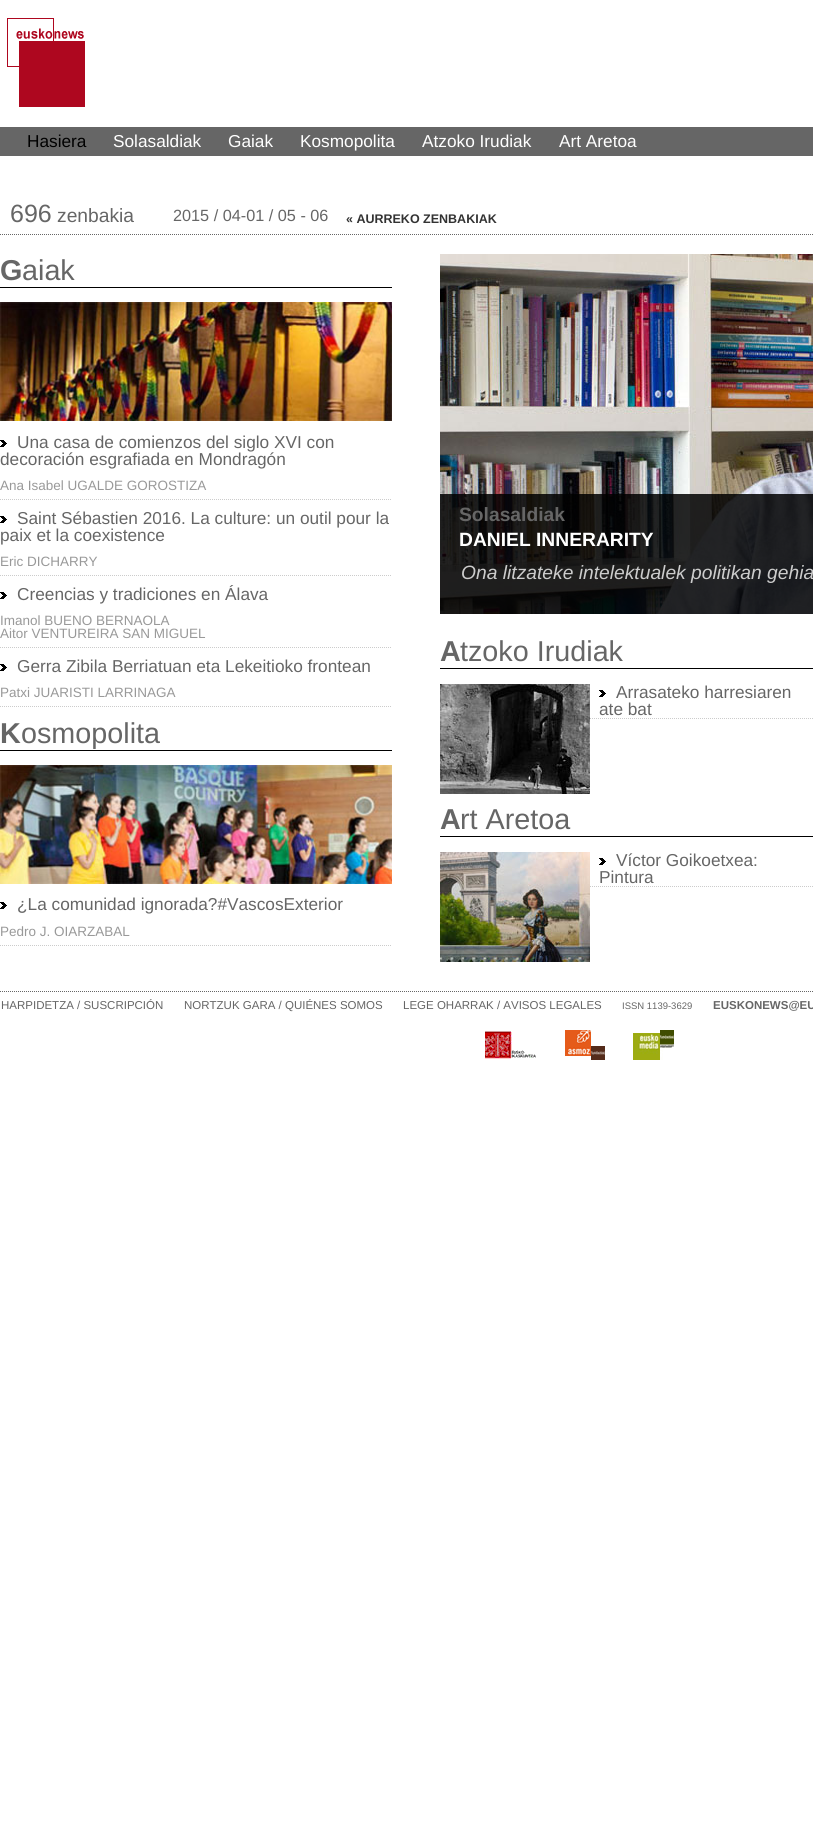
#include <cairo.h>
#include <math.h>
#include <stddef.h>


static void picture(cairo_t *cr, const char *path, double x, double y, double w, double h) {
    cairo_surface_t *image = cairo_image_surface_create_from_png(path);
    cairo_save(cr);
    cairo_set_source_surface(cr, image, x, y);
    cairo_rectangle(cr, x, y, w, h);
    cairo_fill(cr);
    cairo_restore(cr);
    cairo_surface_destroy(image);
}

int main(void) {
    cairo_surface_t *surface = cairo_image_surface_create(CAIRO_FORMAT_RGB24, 813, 1823);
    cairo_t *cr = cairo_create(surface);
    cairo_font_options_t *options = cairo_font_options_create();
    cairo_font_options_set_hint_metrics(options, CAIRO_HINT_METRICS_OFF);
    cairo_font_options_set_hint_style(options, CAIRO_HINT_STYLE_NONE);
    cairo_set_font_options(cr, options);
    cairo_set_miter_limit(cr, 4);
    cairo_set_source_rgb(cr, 1, 1, 1);
    cairo_paint(cr);
    picture(cr, "img1.png", 7, 18, 78, 89);
    cairo_set_source_rgb(cr, 0.4, 0.4, 0.4);
    cairo_rectangle(cr, 0, 127, 813, 29);
    cairo_fill(cr);
    cairo_select_font_face(cr, "Liberation Sans", CAIRO_FONT_SLANT_NORMAL, CAIRO_FONT_WEIGHT_NORMAL);
    cairo_set_font_size(cr, 17.25);
    cairo_set_source_rgb(cr, 0, 0, 0);
    cairo_move_to(cr, 27, 147);
    cairo_show_text(cr, "Hasiera");
    cairo_set_source_rgb(cr, 1, 1, 1);
    cairo_move_to(cr, 113, 147);
    cairo_show_text(cr, "Solasaldiak");
    cairo_move_to(cr, 228, 147);
    cairo_show_text(cr, "Gaiak");
    cairo_move_to(cr, 300, 147);
    cairo_show_text(cr, "Kosmopolita");
    cairo_move_to(cr, 422, 147);
    cairo_show_text(cr, "Atzoko Irudiak");
    cairo_move_to(cr, 559, 147);
    cairo_show_text(cr, "Art Aretoa");
    cairo_new_path(cr);
    cairo_move_to(cr, 0, 234.5);
    cairo_line_to(cr, 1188, 234.5);
    cairo_set_source_rgb(cr, 0.4, 0.4, 0.4);
    cairo_set_line_width(cr, 1);
    cairo_set_dash(cr, (double[]){1, 1}, 2, 0);
    cairo_stroke(cr);
    cairo_set_font_size(cr, 25);
    cairo_move_to(cr, 10, 222);
    cairo_show_text(cr, "696");
    cairo_set_font_size(cr, 19.25);
    cairo_move_to(cr, 57, 222);
    cairo_show_text(cr, "zenbakia");
    cairo_set_font_size(cr, 16.25);
    cairo_move_to(cr, 173, 221);
    cairo_show_text(cr, "2015 / 04-01 / 05 - 06");
    cairo_select_font_face(cr, "Liberation Sans", CAIRO_FONT_SLANT_NORMAL, CAIRO_FONT_WEIGHT_BOLD);
    cairo_set_font_size(cr, 12.5);
    cairo_set_source_rgb(cr, 0.2, 0.2, 0.2);
    cairo_move_to(cr, 346, 223);
    cairo_show_text(cr, "« AURREKO ZENBAKIAK");
    cairo_set_source_rgb(cr, 0, 0, 0);
    cairo_rectangle(cr, 0, 287, 392, 1);
    cairo_fill(cr);
    cairo_set_font_size(cr, 28.75);
    cairo_set_source_rgb(cr, 0.4, 0.4, 0.4);
    cairo_move_to(cr, 0, 280);
    cairo_show_text(cr, "G");
    cairo_select_font_face(cr, "Liberation Sans", CAIRO_FONT_SLANT_NORMAL, CAIRO_FONT_WEIGHT_NORMAL);
    cairo_move_to(cr, 22, 280);
    cairo_show_text(cr, "aiak");
    picture(cr, "img2.png", 0, 302, 392, 119);
    cairo_new_path(cr);
    cairo_move_to(cr, 0, 499.5);
    cairo_line_to(cr, 392, 499.5);
    cairo_set_source_rgb(cr, 0.8, 0.8, 0.8);
    cairo_stroke(cr);
    picture(cr, "img3.png", 0, 440, 7, 7);
    cairo_set_font_size(cr, 17.25);
    cairo_set_source_rgb(cr, 0.4, 0.4, 0.4);
    cairo_move_to(cr, 17, 448);
    cairo_show_text(cr, "Una casa de comienzos del siglo XVI con");
    cairo_move_to(cr, 0, 465);
    cairo_show_text(cr, "decoración esgrafiada en Mondragón");
    cairo_set_font_size(cr, 13.5);
    cairo_set_source_rgb(cr, 0.6, 0.6, 0.6);
    cairo_move_to(cr, 0, 490);
    cairo_show_text(cr, "Ana Isabel UGALDE GOROSTIZA");
    cairo_new_path(cr);
    cairo_move_to(cr, 0, 575.5);
    cairo_line_to(cr, 392, 575.5);
    cairo_set_source_rgb(cr, 0.8, 0.8, 0.8);
    cairo_stroke(cr);
    picture(cr, "img3.png", 0, 516, 7, 7);
    cairo_set_font_size(cr, 17.25);
    cairo_set_source_rgb(cr, 0.4, 0.4, 0.4);
    cairo_move_to(cr, 17, 524);
    cairo_show_text(cr, "Saint Sébastien 2016. La culture: un outil pour la");
    cairo_move_to(cr, 0, 541);
    cairo_show_text(cr, "paix et la coexistence");
    cairo_set_font_size(cr, 13.5);
    cairo_set_source_rgb(cr, 0.6, 0.6, 0.6);
    cairo_move_to(cr, 0, 566);
    cairo_show_text(cr, "Eric DICHARRY");
    cairo_new_path(cr);
    cairo_move_to(cr, 0, 647.5);
    cairo_line_to(cr, 392, 647.5);
    cairo_set_source_rgb(cr, 0.8, 0.8, 0.8);
    cairo_stroke(cr);
    picture(cr, "img3.png", 0, 592, 7, 7);
    cairo_set_font_size(cr, 17.25);
    cairo_set_source_rgb(cr, 0.4, 0.4, 0.4);
    cairo_move_to(cr, 17, 600);
    cairo_show_text(cr, "Creencias y tradiciones en Álava");
    cairo_set_font_size(cr, 13.5);
    cairo_set_source_rgb(cr, 0.6, 0.6, 0.6);
    cairo_move_to(cr, 0, 625);
    cairo_show_text(cr, "Imanol BUENO BERNAOLA");
    cairo_move_to(cr, 0, 638);
    cairo_show_text(cr, "Aitor VENTUREIRA SAN MIGUEL");
    cairo_new_path(cr);
    cairo_move_to(cr, 0, 706.5);
    cairo_line_to(cr, 392, 706.5);
    cairo_set_source_rgb(cr, 0.8, 0.8, 0.8);
    cairo_stroke(cr);
    picture(cr, "img3.png", 0, 664, 7, 7);
    cairo_set_font_size(cr, 17.25);
    cairo_set_source_rgb(cr, 0.4, 0.4, 0.4);
    cairo_move_to(cr, 17, 672);
    cairo_show_text(cr, "Gerra Zibila Berriatuan eta Lekeitioko frontean");
    cairo_set_font_size(cr, 13.5);
    cairo_set_source_rgb(cr, 0.6, 0.6, 0.6);
    cairo_move_to(cr, 0, 697);
    cairo_show_text(cr, "Patxi JUARISTI LARRINAGA");
    cairo_set_source_rgb(cr, 0, 0, 0);
    cairo_rectangle(cr, 0, 750, 392, 1);
    cairo_fill(cr);
    cairo_select_font_face(cr, "Liberation Sans", CAIRO_FONT_SLANT_NORMAL, CAIRO_FONT_WEIGHT_BOLD);
    cairo_set_font_size(cr, 28.75);
    cairo_set_source_rgb(cr, 0.4, 0.4, 0.4);
    cairo_move_to(cr, 0, 743);
    cairo_show_text(cr, "K");
    cairo_select_font_face(cr, "Liberation Sans", CAIRO_FONT_SLANT_NORMAL, CAIRO_FONT_WEIGHT_NORMAL);
    cairo_move_to(cr, 21, 743);
    cairo_show_text(cr, "osmopolita");
    picture(cr, "img4.png", 0, 765, 392, 119);
    cairo_new_path(cr);
    cairo_move_to(cr, 0, 945.5);
    cairo_line_to(cr, 392, 945.5);
    cairo_set_source_rgb(cr, 0.8, 0.8, 0.8);
    cairo_stroke(cr);
    picture(cr, "img3.png", 0, 902, 7, 7);
    cairo_set_font_size(cr, 17.25);
    cairo_set_source_rgb(cr, 0.4, 0.4, 0.4);
    cairo_move_to(cr, 17, 910);
    cairo_show_text(cr, "¿La comunidad ignorada?#VascosExterior");
    cairo_set_font_size(cr, 13.5);
    cairo_set_source_rgb(cr, 0.6, 0.6, 0.6);
    cairo_move_to(cr, 0, 936);
    cairo_show_text(cr, "Pedro J. OIARZABAL");
    picture(cr, "img5.png", 440, 254, 373, 360);
    cairo_set_source_rgba(cr, 0, 0, 0, 0.85);
    cairo_rectangle(cr, 440, 494, 373, 120);
    cairo_fill(cr);
    cairo_select_font_face(cr, "Liberation Sans", CAIRO_FONT_SLANT_NORMAL, CAIRO_FONT_WEIGHT_BOLD);
    cairo_set_font_size(cr, 19.25);
    cairo_set_source_rgb(cr, 0.4, 0.4, 0.4);
    cairo_move_to(cr, 459, 521);
    cairo_show_text(cr, "Solasaldiak");
    cairo_set_source_rgb(cr, 1, 1, 1);
    cairo_move_to(cr, 459, 546);
    cairo_show_text(cr, "DANIEL INNERARITY");
    cairo_select_font_face(cr, "Liberation Sans", CAIRO_FONT_SLANT_ITALIC, CAIRO_FONT_WEIGHT_NORMAL);
    cairo_set_source_rgb(cr, 0.8, 0.8, 0.8);
    cairo_move_to(cr, 461, 579);
    cairo_show_text(cr, "Ona litzateke intelektualek politikan gehia");
    cairo_set_source_rgb(cr, 0, 0, 0);
    cairo_rectangle(cr, 440, 668, 373, 1);
    cairo_fill(cr);
    cairo_select_font_face(cr, "Liberation Sans", CAIRO_FONT_SLANT_NORMAL, CAIRO_FONT_WEIGHT_BOLD);
    cairo_set_font_size(cr, 28.75);
    cairo_set_source_rgb(cr, 0.4, 0.4, 0.4);
    cairo_move_to(cr, 440, 661);
    cairo_show_text(cr, "A");
    cairo_select_font_face(cr, "Liberation Sans", CAIRO_FONT_SLANT_NORMAL, CAIRO_FONT_WEIGHT_NORMAL);
    cairo_move_to(cr, 460, 661);
    cairo_show_text(cr, "tzoko Irudiak");
    cairo_new_path(cr);
    cairo_move_to(cr, 440, 718.5);
    cairo_line_to(cr, 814, 718.5);
    cairo_set_source_rgb(cr, 0.8, 0.8, 0.8);
    cairo_stroke(cr);
    picture(cr, "img6.png", 440, 684, 150, 110);
    picture(cr, "img3.png", 599, 690, 7, 7);
    cairo_set_font_size(cr, 17.25);
    cairo_set_source_rgb(cr, 0.4, 0.4, 0.4);
    cairo_move_to(cr, 616, 698);
    cairo_show_text(cr, "Arrasateko harresiaren");
    cairo_move_to(cr, 599, 715);
    cairo_show_text(cr, "ate bat");
    cairo_set_source_rgb(cr, 0, 0, 0);
    cairo_rectangle(cr, 440, 836, 373, 1);
    cairo_fill(cr);
    cairo_select_font_face(cr, "Liberation Sans", CAIRO_FONT_SLANT_NORMAL, CAIRO_FONT_WEIGHT_BOLD);
    cairo_set_font_size(cr, 28.75);
    cairo_set_source_rgb(cr, 0.4, 0.4, 0.4);
    cairo_move_to(cr, 440, 829);
    cairo_show_text(cr, "A");
    cairo_select_font_face(cr, "Liberation Sans", CAIRO_FONT_SLANT_NORMAL, CAIRO_FONT_WEIGHT_NORMAL);
    cairo_move_to(cr, 460, 829);
    cairo_show_text(cr, "rt Aretoa");
    cairo_new_path(cr);
    cairo_move_to(cr, 440, 886.5);
    cairo_line_to(cr, 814, 886.5);
    cairo_set_source_rgb(cr, 0.8, 0.8, 0.8);
    cairo_stroke(cr);
    picture(cr, "img7.png", 440, 852, 150, 110);
    picture(cr, "img3.png", 599, 858, 7, 7);
    cairo_set_font_size(cr, 17.25);
    cairo_set_source_rgb(cr, 0.4, 0.4, 0.4);
    cairo_move_to(cr, 616, 866);
    cairo_show_text(cr, "Víctor Goikoetxea:");
    cairo_move_to(cr, 599, 883);
    cairo_show_text(cr, "Pintura");
    cairo_new_path(cr);
    cairo_move_to(cr, 0, 991.5);
    cairo_line_to(cr, 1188, 991.5);
    cairo_stroke(cr);
    cairo_set_font_size(cr, 11.5);
    cairo_move_to(cr, 1, 1009);
    cairo_show_text(cr, "HARPIDETZA / SUSCRIPCIÓN");
    cairo_move_to(cr, 184, 1009);
    cairo_show_text(cr, "NORTZUK GARA / QUIÉNES SOMOS");
    cairo_move_to(cr, 403, 1009);
    cairo_show_text(cr, "LEGE OHARRAK / AVISOS LEGALES");
    cairo_set_font_size(cr, 9.5);
    cairo_move_to(cr, 622, 1009);
    cairo_show_text(cr, "ISSN 1139-3629");
    cairo_select_font_face(cr, "Liberation Sans", CAIRO_FONT_SLANT_NORMAL, CAIRO_FONT_WEIGHT_BOLD);
    cairo_set_font_size(cr, 11.5);
    cairo_move_to(cr, 713, 1009);
    cairo_show_text(cr, "EUSKONEWS@EU");
    picture(cr, "img8.png", 485, 1031, 51, 28);
    picture(cr, "img9.png", 565, 1030, 40, 30);
    picture(cr, "img10.png", 633, 1030, 41, 30);
    cairo_surface_write_to_png(surface, "page.png");
    cairo_font_options_destroy(options);
    cairo_destroy(cr);
    cairo_surface_destroy(surface);
    return 0;
}
